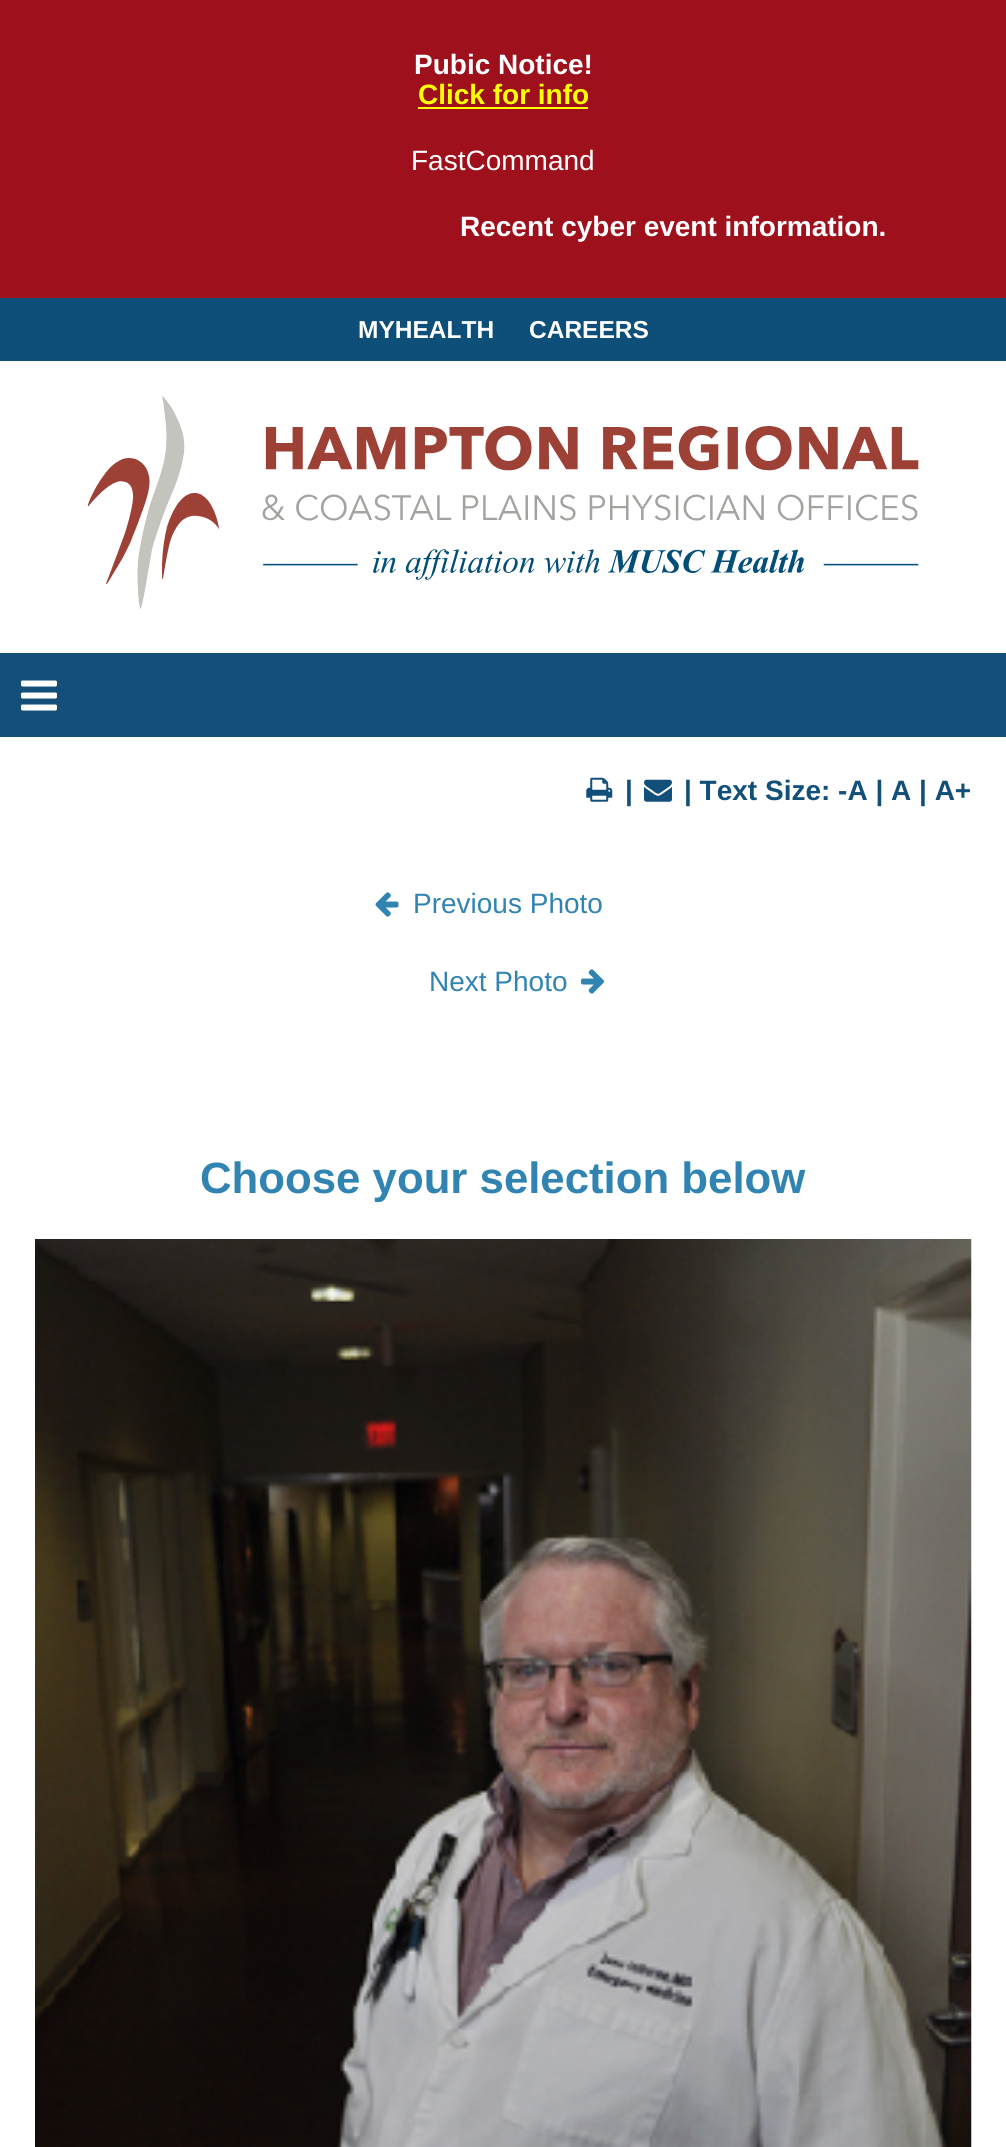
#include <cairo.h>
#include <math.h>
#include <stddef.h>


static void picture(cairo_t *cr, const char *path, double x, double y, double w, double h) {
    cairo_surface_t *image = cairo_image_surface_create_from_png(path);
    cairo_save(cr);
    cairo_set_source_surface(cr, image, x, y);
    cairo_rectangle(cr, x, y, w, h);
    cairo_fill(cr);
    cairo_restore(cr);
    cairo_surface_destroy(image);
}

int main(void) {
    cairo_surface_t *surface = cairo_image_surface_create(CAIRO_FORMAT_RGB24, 1006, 2147);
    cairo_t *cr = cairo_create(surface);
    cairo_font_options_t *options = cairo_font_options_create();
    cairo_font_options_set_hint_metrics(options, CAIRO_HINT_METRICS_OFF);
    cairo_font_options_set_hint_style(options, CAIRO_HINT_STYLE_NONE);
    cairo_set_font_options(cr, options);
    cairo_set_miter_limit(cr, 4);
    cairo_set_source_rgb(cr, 1, 1, 1);
    cairo_paint(cr);
    cairo_set_source_rgb(cr, 0.62, 0.067, 0.11);
    cairo_rectangle(cr, 0, 0, 1006, 298);
    cairo_fill(cr);
    cairo_select_font_face(cr, "Liberation Sans", CAIRO_FONT_SLANT_NORMAL, CAIRO_FONT_WEIGHT_BOLD);
    cairo_set_font_size(cr, 28);
    cairo_set_source_rgb(cr, 1, 1, 1);
    cairo_move_to(cr, 414, 74);
    cairo_show_text(cr, "Pubic Notice!");
    cairo_set_source_rgb(cr, 1, 1, 0);
    cairo_move_to(cr, 418, 104);
    cairo_show_text(cr, "Click for info");
    cairo_rectangle(cr, 418, 107, 170, 2);
    cairo_fill(cr);
    cairo_select_font_face(cr, "Liberation Sans", CAIRO_FONT_SLANT_NORMAL, CAIRO_FONT_WEIGHT_NORMAL);
    cairo_set_source_rgb(cr, 1, 1, 1);
    cairo_move_to(cr, 411, 170);
    cairo_show_text(cr, "FastCommand");
    cairo_select_font_face(cr, "Liberation Sans", CAIRO_FONT_SLANT_NORMAL, CAIRO_FONT_WEIGHT_BOLD);
    cairo_move_to(cr, 460, 236);
    cairo_show_text(cr, "Recent cyber event information.");
    cairo_set_source_rgb(cr, 0.055, 0.31, 0.475);
    cairo_rectangle(cr, 0, 298, 1006, 63);
    cairo_fill(cr);
    cairo_set_font_size(cr, 24.5);
    cairo_set_source_rgb(cr, 1, 1, 1);
    cairo_move_to(cr, 358, 338);
    cairo_show_text(cr, "MYHEALTH");
    cairo_move_to(cr, 529, 338);
    cairo_show_text(cr, "CAREERS");
    picture(cr, "img1.png", 88, 396, 831, 213);
    cairo_set_source_rgb(cr, 0.078, 0.31, 0.475);
    cairo_rectangle(cr, 0, 653, 1006, 84);
    cairo_fill(cr);
    picture(cr, "img2.png", 21, 680, 36, 31);
    picture(cr, "img3.png", 586, 777, 27, 25);
    cairo_set_font_size(cr, 28);
    cairo_set_source_rgb(cr, 0.071, 0.31, 0.475);
    cairo_move_to(cr, 625, 800);
    cairo_show_text(cr, "|");
    picture(cr, "img4.png", 644, 779, 28, 23);
    cairo_move_to(cr, 684, 800);
    cairo_show_text(cr, "| Text Size: -A | A | A+");
    picture(cr, "img5.png", 375, 892, 24, 25);
    cairo_select_font_face(cr, "Liberation Sans", CAIRO_FONT_SLANT_NORMAL, CAIRO_FONT_WEIGHT_NORMAL);
    cairo_set_source_rgb(cr, 0.192, 0.518, 0.694);
    cairo_move_to(cr, 413, 913);
    cairo_show_text(cr, "Previous Photo");
    cairo_move_to(cr, 429, 991);
    cairo_show_text(cr, "Next Photo");
    picture(cr, "img6.png", 581, 969, 23, 25);
    cairo_select_font_face(cr, "Liberation Sans", CAIRO_FONT_SLANT_NORMAL, CAIRO_FONT_WEIGHT_BOLD);
    cairo_set_font_size(cr, 43.75);
    cairo_move_to(cr, 200, 1193);
    cairo_show_text(cr, "Choose your selection below");
    picture(cr, "img7.png", 35, 1239, 937, 908);
    cairo_surface_write_to_png(surface, "page.png");
    cairo_font_options_destroy(options);
    cairo_destroy(cr);
    cairo_surface_destroy(surface);
    return 0;
}
